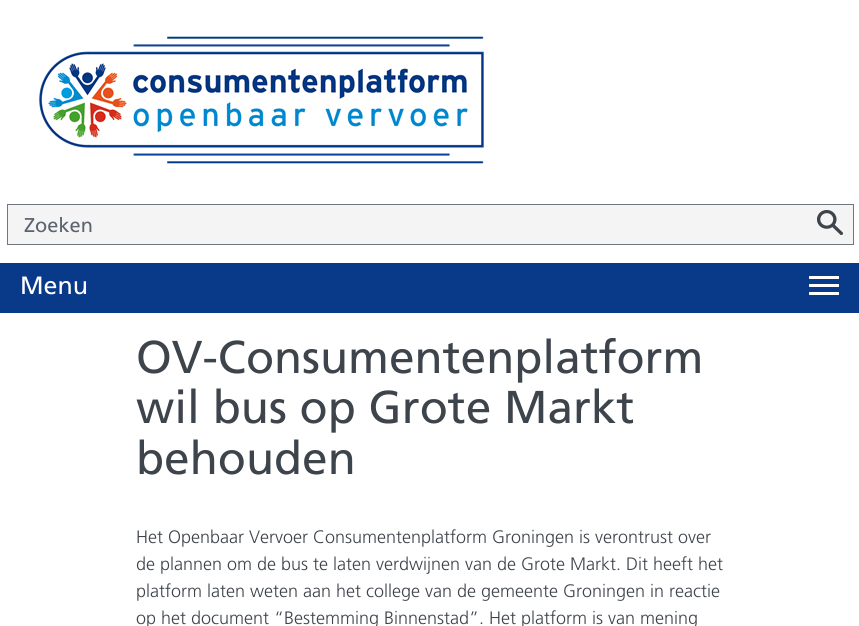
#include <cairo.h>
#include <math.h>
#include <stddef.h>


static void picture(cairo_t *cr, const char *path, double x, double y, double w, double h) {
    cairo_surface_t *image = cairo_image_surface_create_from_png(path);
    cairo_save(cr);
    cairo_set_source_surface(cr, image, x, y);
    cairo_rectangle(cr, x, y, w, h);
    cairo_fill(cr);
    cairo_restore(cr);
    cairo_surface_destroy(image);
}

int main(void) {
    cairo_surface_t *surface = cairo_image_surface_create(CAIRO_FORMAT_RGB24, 859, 626);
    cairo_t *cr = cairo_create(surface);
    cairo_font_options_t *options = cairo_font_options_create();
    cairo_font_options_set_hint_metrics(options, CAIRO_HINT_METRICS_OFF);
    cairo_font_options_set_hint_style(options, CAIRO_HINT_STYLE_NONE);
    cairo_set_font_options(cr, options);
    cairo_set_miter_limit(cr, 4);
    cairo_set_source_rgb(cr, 1, 1, 1);
    cairo_paint(cr);
    picture(cr, "img1.png", 39, 36, 445, 128);
    cairo_set_source_rgb(cr, 0.957, 0.957, 0.957);
    cairo_rectangle(cr, 7.5, 204.5, 846, 40);
    cairo_fill_preserve(cr);
    cairo_set_source_rgb(cr, 0.435, 0.467, 0.502);
    cairo_set_line_width(cr, 1);
    cairo_stroke(cr);
    cairo_select_font_face(cr, "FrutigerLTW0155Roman", CAIRO_FONT_SLANT_NORMAL, CAIRO_FONT_WEIGHT_NORMAL);
    cairo_set_font_size(cr, 20);
    cairo_set_source_rgb(cr, 0.357, 0.392, 0.435);
    cairo_move_to(cr, 24, 232);
    cairo_show_text(cr, "Zoeken");
    picture(cr, "img2.png", 817, 210, 26, 25);
    cairo_set_source_rgb(cr, 0.039, 0.227, 0.541);
    cairo_rectangle(cr, 0, 263, 859, 50);
    cairo_fill(cr);
    cairo_set_font_size(cr, 25);
    cairo_set_source_rgb(cr, 1, 1, 1);
    cairo_move_to(cr, 20, 294);
    cairo_show_text(cr, "Menu");
    picture(cr, "img3.png", 809, 276, 30, 19);
    cairo_set_font_size(cr, 46);
    cairo_set_source_rgb(cr, 0.243, 0.267, 0.294);
    cairo_move_to(cr, 136, 373);
    cairo_show_text(cr, "OV-Consumentenplatform");
    cairo_move_to(cr, 136, 423);
    cairo_show_text(cr, "wil bus op Grote Markt");
    cairo_move_to(cr, 136, 474);
    cairo_show_text(cr, "behouden");
    cairo_select_font_face(cr, "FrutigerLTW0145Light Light", CAIRO_FONT_SLANT_NORMAL, CAIRO_FONT_WEIGHT_NORMAL);
    cairo_set_font_size(cr, 18);
    cairo_move_to(cr, 136, 543);
    cairo_show_text(cr, "Het Openbaar Vervoer Consumentenplatform Groningen is verontrust over");
    cairo_move_to(cr, 136, 570);
    cairo_show_text(cr, "de plannen om de bus te laten verdwijnen van de Grote Markt. Dit heeft het");
    cairo_move_to(cr, 136, 597);
    cairo_show_text(cr, "platform laten weten aan het college van de gemeente Groningen in reactie");
    cairo_move_to(cr, 136, 624);
    cairo_show_text(cr, "op het document “Bestemming Binnenstad”. Het platform is van mening");
    cairo_surface_write_to_png(surface, "page.png");
    cairo_font_options_destroy(options);
    cairo_destroy(cr);
    cairo_surface_destroy(surface);
    return 0;
}
